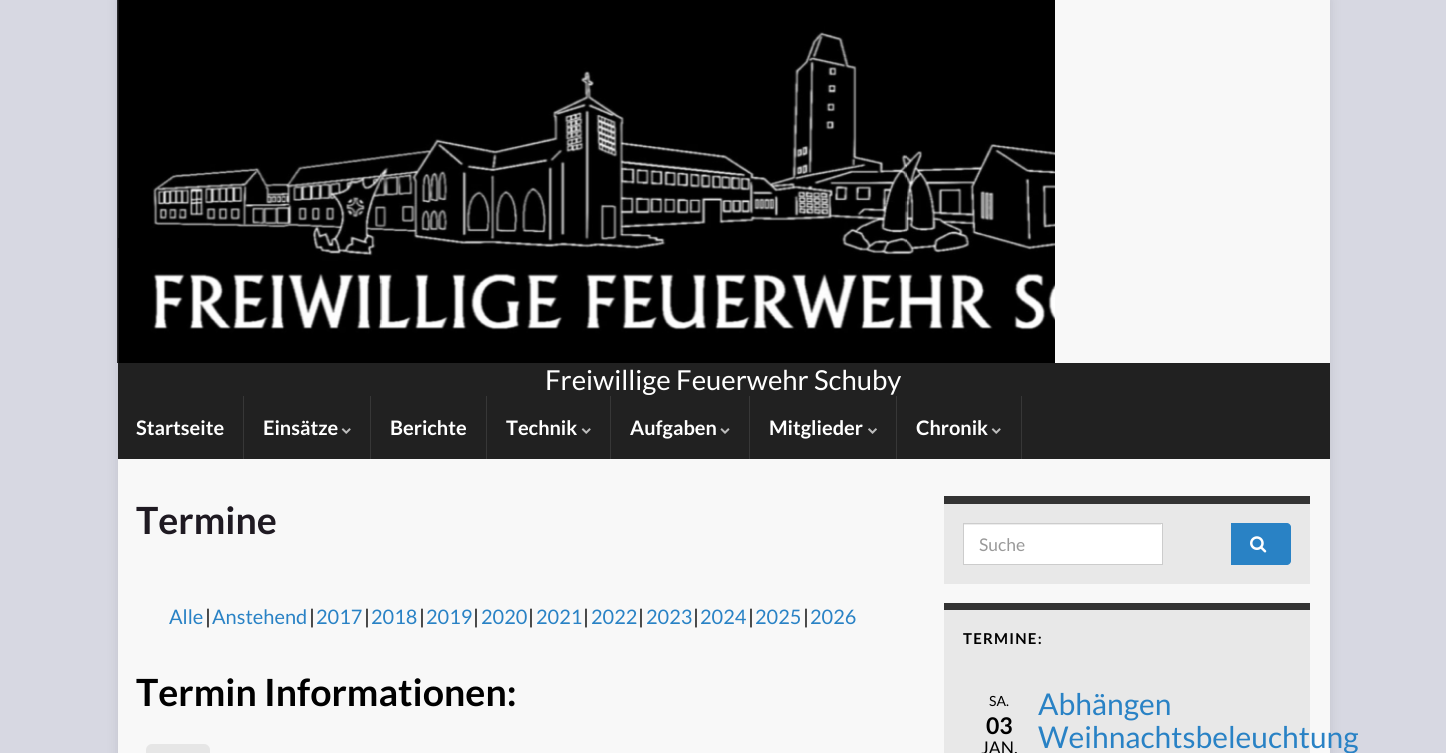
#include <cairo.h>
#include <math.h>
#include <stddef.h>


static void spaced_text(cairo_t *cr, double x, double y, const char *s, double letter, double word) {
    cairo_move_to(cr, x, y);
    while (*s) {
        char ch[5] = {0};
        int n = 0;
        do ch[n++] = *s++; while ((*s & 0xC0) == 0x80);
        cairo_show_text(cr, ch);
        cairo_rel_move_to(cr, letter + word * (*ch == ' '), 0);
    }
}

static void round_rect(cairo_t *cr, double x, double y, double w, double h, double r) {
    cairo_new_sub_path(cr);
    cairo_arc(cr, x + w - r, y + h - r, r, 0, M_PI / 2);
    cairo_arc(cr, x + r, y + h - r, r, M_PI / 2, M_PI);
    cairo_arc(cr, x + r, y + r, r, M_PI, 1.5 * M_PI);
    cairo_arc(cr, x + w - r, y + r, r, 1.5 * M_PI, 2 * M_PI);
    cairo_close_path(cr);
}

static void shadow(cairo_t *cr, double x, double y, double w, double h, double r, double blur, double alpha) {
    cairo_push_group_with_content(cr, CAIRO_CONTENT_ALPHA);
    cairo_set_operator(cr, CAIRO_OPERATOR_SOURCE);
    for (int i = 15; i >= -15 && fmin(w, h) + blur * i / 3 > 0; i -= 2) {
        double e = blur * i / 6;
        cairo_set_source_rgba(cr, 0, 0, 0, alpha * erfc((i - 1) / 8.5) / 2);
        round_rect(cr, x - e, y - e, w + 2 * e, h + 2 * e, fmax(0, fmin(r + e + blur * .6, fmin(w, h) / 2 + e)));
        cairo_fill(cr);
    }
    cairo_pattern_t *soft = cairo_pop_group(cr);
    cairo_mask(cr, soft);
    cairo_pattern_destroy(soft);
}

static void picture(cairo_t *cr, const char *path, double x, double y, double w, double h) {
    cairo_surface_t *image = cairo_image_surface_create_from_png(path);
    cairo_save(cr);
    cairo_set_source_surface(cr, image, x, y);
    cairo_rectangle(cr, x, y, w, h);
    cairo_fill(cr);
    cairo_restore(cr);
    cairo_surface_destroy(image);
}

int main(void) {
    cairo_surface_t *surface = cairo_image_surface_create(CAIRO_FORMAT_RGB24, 1446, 753);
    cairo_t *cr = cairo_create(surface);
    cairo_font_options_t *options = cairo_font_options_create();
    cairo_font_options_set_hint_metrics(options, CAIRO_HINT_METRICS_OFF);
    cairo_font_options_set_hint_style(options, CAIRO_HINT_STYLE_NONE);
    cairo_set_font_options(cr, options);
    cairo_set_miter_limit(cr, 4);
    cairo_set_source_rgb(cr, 0.843, 0.847, 0.886);
    cairo_paint(cr);
    cairo_set_source_rgb(cr, 0, 0, 0);
    shadow(cr, 118, 0, 1212, 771, 0, 6, 0.1);
    cairo_set_source_rgb(cr, 0.969, 0.969, 0.969);
    cairo_rectangle(cr, 118, 0, 1212, 363);
    cairo_fill(cr);
    picture(cr, "img1.png", 117, 0, 938, 363);
    cairo_set_source_rgb(cr, 0.129, 0.129, 0.129);
    cairo_rectangle(cr, 118, 363, 1212, 96);
    cairo_fill(cr);
    cairo_set_source_rgba(cr, 0, 0, 0, 0.6);
    cairo_rectangle(cr, 118, 238, 1, 10);
    cairo_fill(cr);
    cairo_select_font_face(cr, "Lato", CAIRO_FONT_SLANT_NORMAL, CAIRO_FONT_WEIGHT_NORMAL);
    cairo_set_font_size(cr, 27.5);
    cairo_set_source_rgb(cr, 1, 1, 1);
    cairo_move_to(cr, 545, 390);
    cairo_show_text(cr, "Freiwillige Feuerwehr Schuby");
    cairo_set_source_rgb(cr, 0.216, 0.216, 0.216);
    cairo_rectangle(cr, 243, 396, 1, 63);
    cairo_fill(cr);
    cairo_select_font_face(cr, "Lato", CAIRO_FONT_SLANT_NORMAL, CAIRO_FONT_WEIGHT_BOLD);
    cairo_set_font_size(cr, 20);
    cairo_set_source_rgb(cr, 1, 1, 1);
    cairo_move_to(cr, 136, 435);
    cairo_show_text(cr, "Startseite");
    cairo_set_source_rgb(cr, 0.216, 0.216, 0.216);
    cairo_rectangle(cr, 370, 396, 1, 63);
    cairo_fill(cr);
    cairo_set_source_rgb(cr, 1, 1, 1);
    cairo_move_to(cr, 263, 435);
    cairo_show_text(cr, "Einsätze");
    picture(cr, "img2.png", 341, 428, 10, 6);
    cairo_set_source_rgb(cr, 0.216, 0.216, 0.216);
    cairo_rectangle(cr, 486, 396, 1, 63);
    cairo_fill(cr);
    cairo_set_source_rgb(cr, 1, 1, 1);
    cairo_move_to(cr, 390, 435);
    cairo_show_text(cr, "Berichte");
    cairo_set_source_rgb(cr, 0.216, 0.216, 0.216);
    cairo_rectangle(cr, 610, 396, 1, 63);
    cairo_fill(cr);
    cairo_set_source_rgb(cr, 1, 1, 1);
    cairo_move_to(cr, 506, 435);
    cairo_show_text(cr, "Technik");
    picture(cr, "img2.png", 581, 428, 10, 6);
    cairo_set_source_rgb(cr, 0.216, 0.216, 0.216);
    cairo_rectangle(cr, 749, 396, 1, 63);
    cairo_fill(cr);
    cairo_set_source_rgb(cr, 1, 1, 1);
    cairo_move_to(cr, 630, 435);
    cairo_show_text(cr, "Aufgaben");
    picture(cr, "img3.png", 720, 428, 10, 6);
    cairo_set_source_rgb(cr, 0.216, 0.216, 0.216);
    cairo_rectangle(cr, 896, 396, 1, 63);
    cairo_fill(cr);
    cairo_set_source_rgb(cr, 1, 1, 1);
    cairo_move_to(cr, 769, 435);
    cairo_show_text(cr, "Mitglieder");
    picture(cr, "img4.png", 868, 428, 9, 6);
    cairo_set_source_rgb(cr, 0.216, 0.216, 0.216);
    cairo_rectangle(cr, 1021, 396, 1, 63);
    cairo_fill(cr);
    cairo_set_source_rgb(cr, 1, 1, 1);
    cairo_move_to(cr, 916, 435);
    cairo_show_text(cr, "Chronik");
    picture(cr, "img2.png", 991, 428, 10, 6);
    cairo_set_source_rgb(cr, 0.969, 0.969, 0.969);
    cairo_rectangle(cr, 118, 459, 1212, 294);
    cairo_fill(cr);
    cairo_set_font_size(cr, 37.5);
    cairo_set_source_rgb(cr, 0.122, 0.102, 0.133);
    cairo_move_to(cr, 136, 534);
    cairo_show_text(cr, "Termine");
    cairo_select_font_face(cr, "Lato", CAIRO_FONT_SLANT_NORMAL, CAIRO_FONT_WEIGHT_NORMAL);
    cairo_set_font_size(cr, 20);
    cairo_set_source_rgb(cr, 0.161, 0.51, 0.773);
    cairo_move_to(cr, 169, 624);
    cairo_show_text(cr, "Alle");
    cairo_set_source_rgb(cr, 0, 0, 0);
    cairo_move_to(cr, 205, 624);
    cairo_show_text(cr, "|");
    cairo_set_source_rgb(cr, 0.161, 0.51, 0.773);
    cairo_move_to(cr, 212, 624);
    cairo_show_text(cr, "Anstehend");
    cairo_set_source_rgb(cr, 0, 0, 0);
    cairo_move_to(cr, 309, 624);
    cairo_show_text(cr, "|");
    cairo_set_source_rgb(cr, 0.161, 0.51, 0.773);
    cairo_move_to(cr, 316, 624);
    cairo_show_text(cr, "2017");
    cairo_set_source_rgb(cr, 0, 0, 0);
    cairo_move_to(cr, 364, 624);
    cairo_show_text(cr, "|");
    cairo_set_source_rgb(cr, 0.161, 0.51, 0.773);
    cairo_move_to(cr, 371, 624);
    cairo_show_text(cr, "2018");
    cairo_set_source_rgb(cr, 0, 0, 0);
    cairo_move_to(cr, 419, 624);
    cairo_show_text(cr, "|");
    cairo_set_source_rgb(cr, 0.161, 0.51, 0.773);
    cairo_move_to(cr, 426, 624);
    cairo_show_text(cr, "2019");
    cairo_set_source_rgb(cr, 0, 0, 0);
    cairo_move_to(cr, 473, 624);
    cairo_show_text(cr, "|");
    cairo_set_source_rgb(cr, 0.161, 0.51, 0.773);
    cairo_move_to(cr, 481, 624);
    cairo_show_text(cr, "2020");
    cairo_set_source_rgb(cr, 0, 0, 0);
    cairo_move_to(cr, 528, 624);
    cairo_show_text(cr, "|");
    cairo_set_source_rgb(cr, 0.161, 0.51, 0.773);
    cairo_move_to(cr, 536, 624);
    cairo_show_text(cr, "2021");
    cairo_set_source_rgb(cr, 0, 0, 0);
    cairo_move_to(cr, 583, 624);
    cairo_show_text(cr, "|");
    cairo_set_source_rgb(cr, 0.161, 0.51, 0.773);
    cairo_move_to(cr, 591, 624);
    cairo_show_text(cr, "2022");
    cairo_set_source_rgb(cr, 0, 0, 0);
    cairo_move_to(cr, 638, 624);
    cairo_show_text(cr, "|");
    cairo_set_source_rgb(cr, 0.161, 0.51, 0.773);
    cairo_move_to(cr, 646, 624);
    cairo_show_text(cr, "2023");
    cairo_set_source_rgb(cr, 0, 0, 0);
    cairo_move_to(cr, 693, 624);
    cairo_show_text(cr, "|");
    cairo_set_source_rgb(cr, 0.161, 0.51, 0.773);
    cairo_move_to(cr, 700, 624);
    cairo_show_text(cr, "2024");
    cairo_set_source_rgb(cr, 0, 0, 0);
    cairo_move_to(cr, 748, 624);
    cairo_show_text(cr, "|");
    cairo_set_source_rgb(cr, 0.161, 0.51, 0.773);
    cairo_move_to(cr, 755, 624);
    cairo_show_text(cr, "2025");
    cairo_set_source_rgb(cr, 0, 0, 0);
    cairo_move_to(cr, 803, 624);
    cairo_show_text(cr, "|");
    cairo_set_source_rgb(cr, 0.161, 0.51, 0.773);
    cairo_move_to(cr, 810, 624);
    cairo_show_text(cr, "2026");
    cairo_select_font_face(cr, "Lato", CAIRO_FONT_SLANT_NORMAL, CAIRO_FONT_WEIGHT_BOLD);
    cairo_set_font_size(cr, 37.5);
    cairo_set_source_rgb(cr, 0, 0, 0);
    cairo_move_to(cr, 136, 706);
    cairo_show_text(cr, "Termin Informationen:");
    cairo_set_source_rgb(cr, 0.902, 0.902, 0.902);
    round_rect(cr, 146, 744, 64, 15, 6);
    cairo_fill(cr);
    cairo_set_source_rgb(cr, 0.91, 0.91, 0.91);
    cairo_rectangle(cr, 944, 504, 366, 80);
    cairo_fill(cr);
    cairo_set_source_rgb(cr, 0.2, 0.2, 0.2);
    cairo_rectangle(cr, 944, 496, 366, 8);
    cairo_fill(cr);
    cairo_set_source_rgb(cr, 1, 1, 1);
    cairo_rectangle(cr, 964, 524, 198, 40);
    cairo_fill(cr);
    cairo_set_source_rgb(cr, 0.925, 0.925, 0.925);
    cairo_rectangle(cr, 964, 524, 197, 1);
    cairo_fill(cr);
    cairo_rectangle(cr, 963.5, 523.5, 199, 41);
    cairo_set_source_rgb(cr, 0.8, 0.8, 0.8);
    cairo_set_line_width(cr, 1);
    cairo_stroke(cr);
    cairo_select_font_face(cr, "Lato", CAIRO_FONT_SLANT_NORMAL, CAIRO_FONT_WEIGHT_NORMAL);
    cairo_set_font_size(cr, 17.5);
    cairo_set_source_rgb(cr, 0.6, 0.6, 0.6);
    cairo_move_to(cr, 979, 551);
    cairo_show_text(cr, "Suche");
    cairo_set_source_rgb(cr, 0.161, 0.51, 0.773);
    cairo_new_path(cr);
    cairo_move_to(cr, 1231, 523);
    cairo_line_to(cr, 1287, 523);
    cairo_curve_to(cr, 1289, 523, 1291, 525, 1291, 527);
    cairo_line_to(cr, 1291, 561);
    cairo_curve_to(cr, 1291, 563, 1289, 565, 1287, 565);
    cairo_line_to(cr, 1231, 565);
    cairo_close_path(cr);
    cairo_fill(cr);
    picture(cr, "img5.png", 1250, 536, 17, 17);
    cairo_set_source_rgb(cr, 0.91, 0.91, 0.91);
    cairo_rectangle(cr, 944, 610, 366, 143);
    cairo_fill(cr);
    cairo_set_source_rgb(cr, 0.2, 0.2, 0.2);
    cairo_rectangle(cr, 944, 603, 366, 7);
    cairo_fill(cr);
    cairo_select_font_face(cr, "Lato", CAIRO_FONT_SLANT_NORMAL, CAIRO_FONT_WEIGHT_BOLD);
    cairo_set_font_size(cr, 15);
    cairo_set_source_rgb(cr, 0, 0, 0);
    spaced_text(cr, 963, 644, "TERMINE:", 1.25, 0);
    cairo_select_font_face(cr, "Lato", CAIRO_FONT_SLANT_NORMAL, CAIRO_FONT_WEIGHT_NORMAL);
    cairo_set_font_size(cr, 14);
    cairo_move_to(cr, 989, 706);
    cairo_show_text(cr, "SA.");
    cairo_select_font_face(cr, "Lato", CAIRO_FONT_SLANT_NORMAL, CAIRO_FONT_WEIGHT_BOLD);
    cairo_set_font_size(cr, 23);
    cairo_move_to(cr, 986, 734);
    cairo_show_text(cr, "03");
    cairo_select_font_face(cr, "Lato", CAIRO_FONT_SLANT_NORMAL, CAIRO_FONT_WEIGHT_NORMAL);
    cairo_set_font_size(cr, 17.5);
    cairo_move_to(cr, 981, 754);
    cairo_show_text(cr, "JAN.");
    cairo_set_font_size(cr, 30);
    cairo_set_source_rgb(cr, 0.161, 0.51, 0.773);
    cairo_move_to(cr, 1038, 715);
    cairo_show_text(cr, "Abhängen");
    cairo_move_to(cr, 1038, 748);
    cairo_show_text(cr, "Weihnachtsbeleuchtung");
    cairo_surface_write_to_png(surface, "page.png");
    cairo_font_options_destroy(options);
    cairo_destroy(cr);
    cairo_surface_destroy(surface);
    return 0;
}
